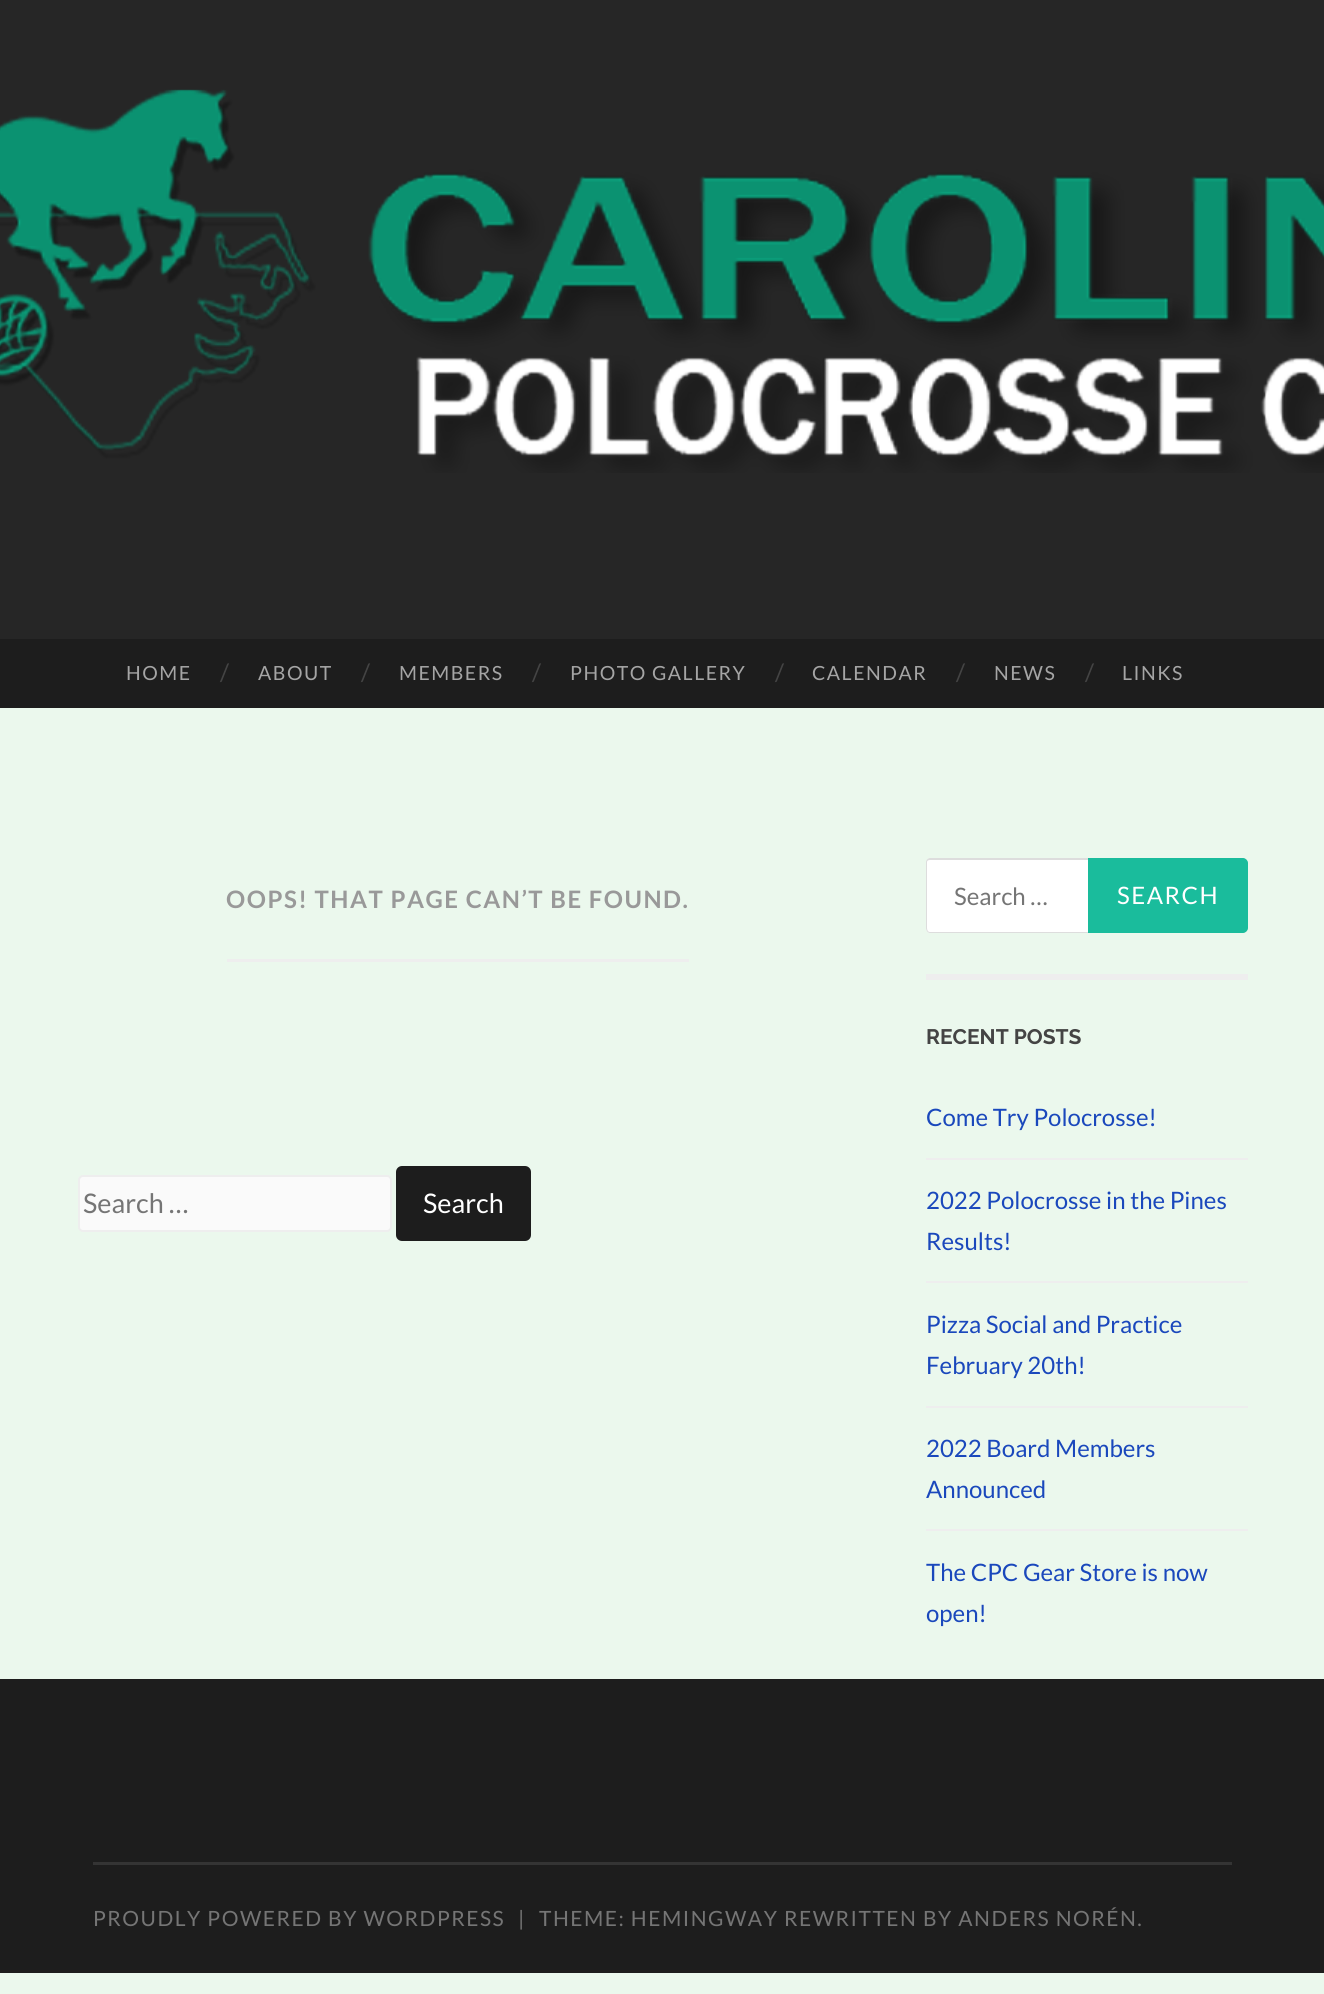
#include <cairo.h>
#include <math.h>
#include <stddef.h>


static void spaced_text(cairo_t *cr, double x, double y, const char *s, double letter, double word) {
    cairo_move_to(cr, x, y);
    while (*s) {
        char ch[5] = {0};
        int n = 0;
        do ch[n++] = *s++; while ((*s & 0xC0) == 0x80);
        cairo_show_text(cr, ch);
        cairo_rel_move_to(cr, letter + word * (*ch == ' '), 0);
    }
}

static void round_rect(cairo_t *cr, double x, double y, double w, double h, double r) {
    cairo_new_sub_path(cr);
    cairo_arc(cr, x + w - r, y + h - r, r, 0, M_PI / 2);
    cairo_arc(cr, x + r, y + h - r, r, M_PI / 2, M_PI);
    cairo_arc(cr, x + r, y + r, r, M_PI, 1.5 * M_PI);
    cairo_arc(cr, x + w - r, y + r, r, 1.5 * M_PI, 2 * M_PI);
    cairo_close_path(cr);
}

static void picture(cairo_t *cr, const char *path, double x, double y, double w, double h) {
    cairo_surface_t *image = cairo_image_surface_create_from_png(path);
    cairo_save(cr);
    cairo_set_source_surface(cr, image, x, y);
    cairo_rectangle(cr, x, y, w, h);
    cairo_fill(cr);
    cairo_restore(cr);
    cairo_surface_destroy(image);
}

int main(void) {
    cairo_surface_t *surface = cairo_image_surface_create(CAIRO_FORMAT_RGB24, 1324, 1994);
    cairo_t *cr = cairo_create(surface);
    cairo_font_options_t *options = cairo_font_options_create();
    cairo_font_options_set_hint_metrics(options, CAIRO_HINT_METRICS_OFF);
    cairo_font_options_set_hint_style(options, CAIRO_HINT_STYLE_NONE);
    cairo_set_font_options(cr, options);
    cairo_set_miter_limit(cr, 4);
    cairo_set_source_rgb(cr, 0.918, 0.969, 0.929);
    cairo_paint(cr);
    cairo_set_source_rgb(cr, 0.149, 0.149, 0.149);
    cairo_rectangle(cr, 0, 0, 1324, 639);
    cairo_fill(cr);
    picture(cr, "img1.png", 0, 89, 1324, 384);
    cairo_set_source_rgb(cr, 0.114, 0.114, 0.114);
    cairo_rectangle(cr, 0, 639, 1324, 69);
    cairo_fill(cr);
    cairo_select_font_face(cr, "Lato", CAIRO_FONT_SLANT_NORMAL, CAIRO_FONT_WEIGHT_NORMAL);
    cairo_set_font_size(cr, 19.5);
    cairo_set_source_rgb(cr, 0.647, 0.647, 0.647);
    spaced_text(cr, 126, 680, "HOME", 1.5, 0);
    cairo_set_font_size(cr, 24);
    cairo_set_source_rgb(cr, 0.267, 0.267, 0.267);
    cairo_move_to(cr, 220, 681);
    cairo_show_text(cr, "/");
    cairo_set_font_size(cr, 19.5);
    cairo_set_source_rgb(cr, 0.647, 0.647, 0.647);
    spaced_text(cr, 258, 680, "ABOUT", 1.5, 0);
    cairo_set_font_size(cr, 24);
    cairo_set_source_rgb(cr, 0.267, 0.267, 0.267);
    cairo_move_to(cr, 361, 681);
    cairo_show_text(cr, "/");
    cairo_set_font_size(cr, 19.5);
    cairo_set_source_rgb(cr, 0.647, 0.647, 0.647);
    spaced_text(cr, 399, 680, "MEMBERS", 1.5, 0);
    cairo_set_font_size(cr, 24);
    cairo_set_source_rgb(cr, 0.267, 0.267, 0.267);
    cairo_move_to(cr, 532, 681);
    cairo_show_text(cr, "/");
    cairo_set_font_size(cr, 19.5);
    cairo_set_source_rgb(cr, 0.647, 0.647, 0.647);
    spaced_text(cr, 570, 680, "PHOTO GALLERY", 1.5, 0);
    cairo_set_font_size(cr, 24);
    cairo_set_source_rgb(cr, 0.267, 0.267, 0.267);
    cairo_move_to(cr, 775, 681);
    cairo_show_text(cr, "/");
    cairo_set_font_size(cr, 19.5);
    cairo_set_source_rgb(cr, 0.647, 0.647, 0.647);
    spaced_text(cr, 812, 680, "CALENDAR", 1.5, 0);
    cairo_set_font_size(cr, 24);
    cairo_set_source_rgb(cr, 0.267, 0.267, 0.267);
    cairo_move_to(cr, 956, 681);
    cairo_show_text(cr, "/");
    cairo_set_font_size(cr, 19.5);
    cairo_set_source_rgb(cr, 0.647, 0.647, 0.647);
    spaced_text(cr, 994, 680, "NEWS", 1.5, 0);
    cairo_set_font_size(cr, 24);
    cairo_set_source_rgb(cr, 0.267, 0.267, 0.267);
    cairo_move_to(cr, 1085, 681);
    cairo_show_text(cr, "/");
    cairo_set_font_size(cr, 19.5);
    cairo_set_source_rgb(cr, 0.647, 0.647, 0.647);
    spaced_text(cr, 1122, 680, "LINKS", 1.5, 0);
    cairo_set_source_rgb(cr, 0.933, 0.933, 0.933);
    cairo_rectangle(cr, 227, 959, 462, 3);
    cairo_fill(cr);
    cairo_select_font_face(cr, "Lato", CAIRO_FONT_SLANT_NORMAL, CAIRO_FONT_WEIGHT_BOLD);
    cairo_set_font_size(cr, 24);
    cairo_set_source_rgb(cr, 0.6, 0.6, 0.6);
    spaced_text(cr, 226, 908, "OOPS! THAT PAGE CAN’T BE FOUND.", 1.5, 0);
    cairo_set_source_rgb(cr, 0.98, 0.98, 0.98);
    round_rect(cr, 79, 1176, 312, 55, 4);
    cairo_fill_preserve(cr);
    cairo_set_source_rgb(cr, 0.933, 0.933, 0.933);
    cairo_stroke(cr);
    cairo_select_font_face(cr, "Lato", CAIRO_FONT_SLANT_NORMAL, CAIRO_FONT_WEIGHT_NORMAL);
    cairo_set_font_size(cr, 27);
    cairo_set_source_rgb(cr, 0.459, 0.459, 0.459);
    cairo_move_to(cr, 83, 1213);
    cairo_show_text(cr, "Search …");
    cairo_set_source_rgb(cr, 0.114, 0.114, 0.114);
    round_rect(cr, 396, 1166, 135, 75, 6);
    cairo_fill(cr);
    cairo_set_source_rgb(cr, 1, 1, 1);
    cairo_move_to(cr, 423, 1213);
    cairo_show_text(cr, "Search");
    cairo_set_source_rgb(cr, 0.933, 0.933, 0.933);
    cairo_rectangle(cr, 926, 974, 322, 6);
    cairo_fill(cr);
    cairo_set_source_rgb(cr, 1, 1, 1);
    cairo_new_path(cr);
    cairo_move_to(cr, 931, 858);
    cairo_line_to(cr, 1244, 858);
    cairo_line_to(cr, 1244, 933);
    cairo_line_to(cr, 931, 933);
    cairo_curve_to(cr, 928, 933, 926, 931, 926, 928);
    cairo_line_to(cr, 926, 863);
    cairo_curve_to(cr, 926, 860, 928, 858, 931, 858);
    cairo_close_path(cr);
    cairo_fill(cr);
    cairo_set_source_rgb(cr, 0.867, 0.867, 0.867);
    cairo_set_fill_rule(cr, CAIRO_FILL_RULE_EVEN_ODD);
    cairo_new_path(cr);
    cairo_move_to(cr, 930, 858);
    cairo_line_to(cr, 1244, 858);
    cairo_line_to(cr, 1244, 933);
    cairo_line_to(cr, 930, 933);
    cairo_curve_to(cr, 928, 933, 926, 931, 926, 928);
    cairo_line_to(cr, 926, 862);
    cairo_curve_to(cr, 926, 860, 928, 858, 930, 858);
    cairo_close_path(cr);
    cairo_move_to(cr, 930, 860);
    cairo_line_to(cr, 1244, 860);
    cairo_line_to(cr, 1244, 932);
    cairo_line_to(cr, 930, 932);
    cairo_curve_to(cr, 928, 932, 927, 930, 927, 928);
    cairo_line_to(cr, 927, 862);
    cairo_curve_to(cr, 927, 861, 928, 860, 930, 860);
    cairo_close_path(cr);
    cairo_fill(cr);
    cairo_set_font_size(cr, 24);
    cairo_set_source_rgb(cr, 0.459, 0.459, 0.459);
    cairo_move_to(cr, 954, 905);
    cairo_show_text(cr, "Search …");
    cairo_set_source_rgb(cr, 0.102, 0.737, 0.612);
    cairo_new_path(cr);
    cairo_move_to(cr, 1089, 859);
    cairo_line_to(cr, 1243, 859);
    cairo_curve_to(cr, 1245, 859, 1247, 861, 1247, 863);
    cairo_line_to(cr, 1247, 928);
    cairo_curve_to(cr, 1247, 930, 1245, 932, 1243, 932);
    cairo_line_to(cr, 1089, 932);
    cairo_close_path(cr);
    cairo_fill_preserve(cr);
    cairo_stroke(cr);
    cairo_set_source_rgb(cr, 1, 1, 1);
    spaced_text(cr, 1117, 904, "SEARCH", 1.5, 0);
    cairo_select_font_face(cr, "Raleway", CAIRO_FONT_SLANT_NORMAL, CAIRO_FONT_WEIGHT_BOLD);
    cairo_set_font_size(cr, 21);
    cairo_set_source_rgb(cr, 0.267, 0.267, 0.267);
    cairo_move_to(cr, 926, 1044);
    cairo_show_text(cr, "RECENT POSTS");
    cairo_select_font_face(cr, "Lato", CAIRO_FONT_SLANT_NORMAL, CAIRO_FONT_WEIGHT_NORMAL);
    cairo_set_font_size(cr, 24);
    cairo_set_source_rgb(cr, 0.102, 0.282, 0.737);
    cairo_move_to(cr, 926, 1126);
    cairo_show_text(cr, "Come Try Polocrosse!");
    cairo_set_source_rgb(cr, 0.933, 0.933, 0.933);
    cairo_rectangle(cr, 926, 1158, 322, 2);
    cairo_fill(cr);
    cairo_set_source_rgb(cr, 0.102, 0.282, 0.737);
    cairo_move_to(cr, 926, 1209);
    cairo_show_text(cr, "2022 Polocrosse in the Pines");
    cairo_move_to(cr, 926, 1250);
    cairo_show_text(cr, "Results!");
    cairo_set_source_rgb(cr, 0.933, 0.933, 0.933);
    cairo_rectangle(cr, 926, 1281, 322, 2);
    cairo_fill(cr);
    cairo_set_source_rgb(cr, 0.102, 0.282, 0.737);
    cairo_move_to(cr, 926, 1333);
    cairo_show_text(cr, "Pizza Social and Practice");
    cairo_move_to(cr, 926, 1374);
    cairo_show_text(cr, "February 20th!");
    cairo_set_source_rgb(cr, 0.933, 0.933, 0.933);
    cairo_rectangle(cr, 926, 1406, 322, 2);
    cairo_fill(cr);
    cairo_set_source_rgb(cr, 0.102, 0.282, 0.737);
    cairo_move_to(cr, 926, 1457);
    cairo_show_text(cr, "2022 Board Members");
    cairo_move_to(cr, 926, 1498);
    cairo_show_text(cr, "Announced");
    cairo_set_source_rgb(cr, 0.933, 0.933, 0.933);
    cairo_rectangle(cr, 926, 1529, 322, 2);
    cairo_fill(cr);
    cairo_set_source_rgb(cr, 0.102, 0.282, 0.737);
    cairo_move_to(cr, 926, 1581);
    cairo_show_text(cr, "The CPC Gear Store is now");
    cairo_move_to(cr, 926, 1622);
    cairo_show_text(cr, "open!");
    cairo_set_source_rgb(cr, 0.114, 0.114, 0.114);
    cairo_rectangle(cr, 0, 1679, 1324, 294);
    cairo_fill(cr);
    cairo_set_source_rgb(cr, 0.204, 0.204, 0.204);
    cairo_rectangle(cr, 93, 1862, 1139, 3);
    cairo_fill(cr);
    cairo_set_font_size(cr, 21);
    cairo_set_source_rgb(cr, 0.459, 0.459, 0.459);
    spaced_text(cr, 93, 1926, "PROUDLY POWERED BY WORDPRESS", 1.5, 0);
    spaced_text(cr, 518, 1926, "|", 1.5, 0);
    spaced_text(cr, 539, 1926, "THEME: HEMINGWAY REWRITTEN BY ANDERS NORÉN.", 1.5, 0);
    cairo_surface_write_to_png(surface, "page.png");
    cairo_font_options_destroy(options);
    cairo_destroy(cr);
    cairo_surface_destroy(surface);
    return 0;
}
